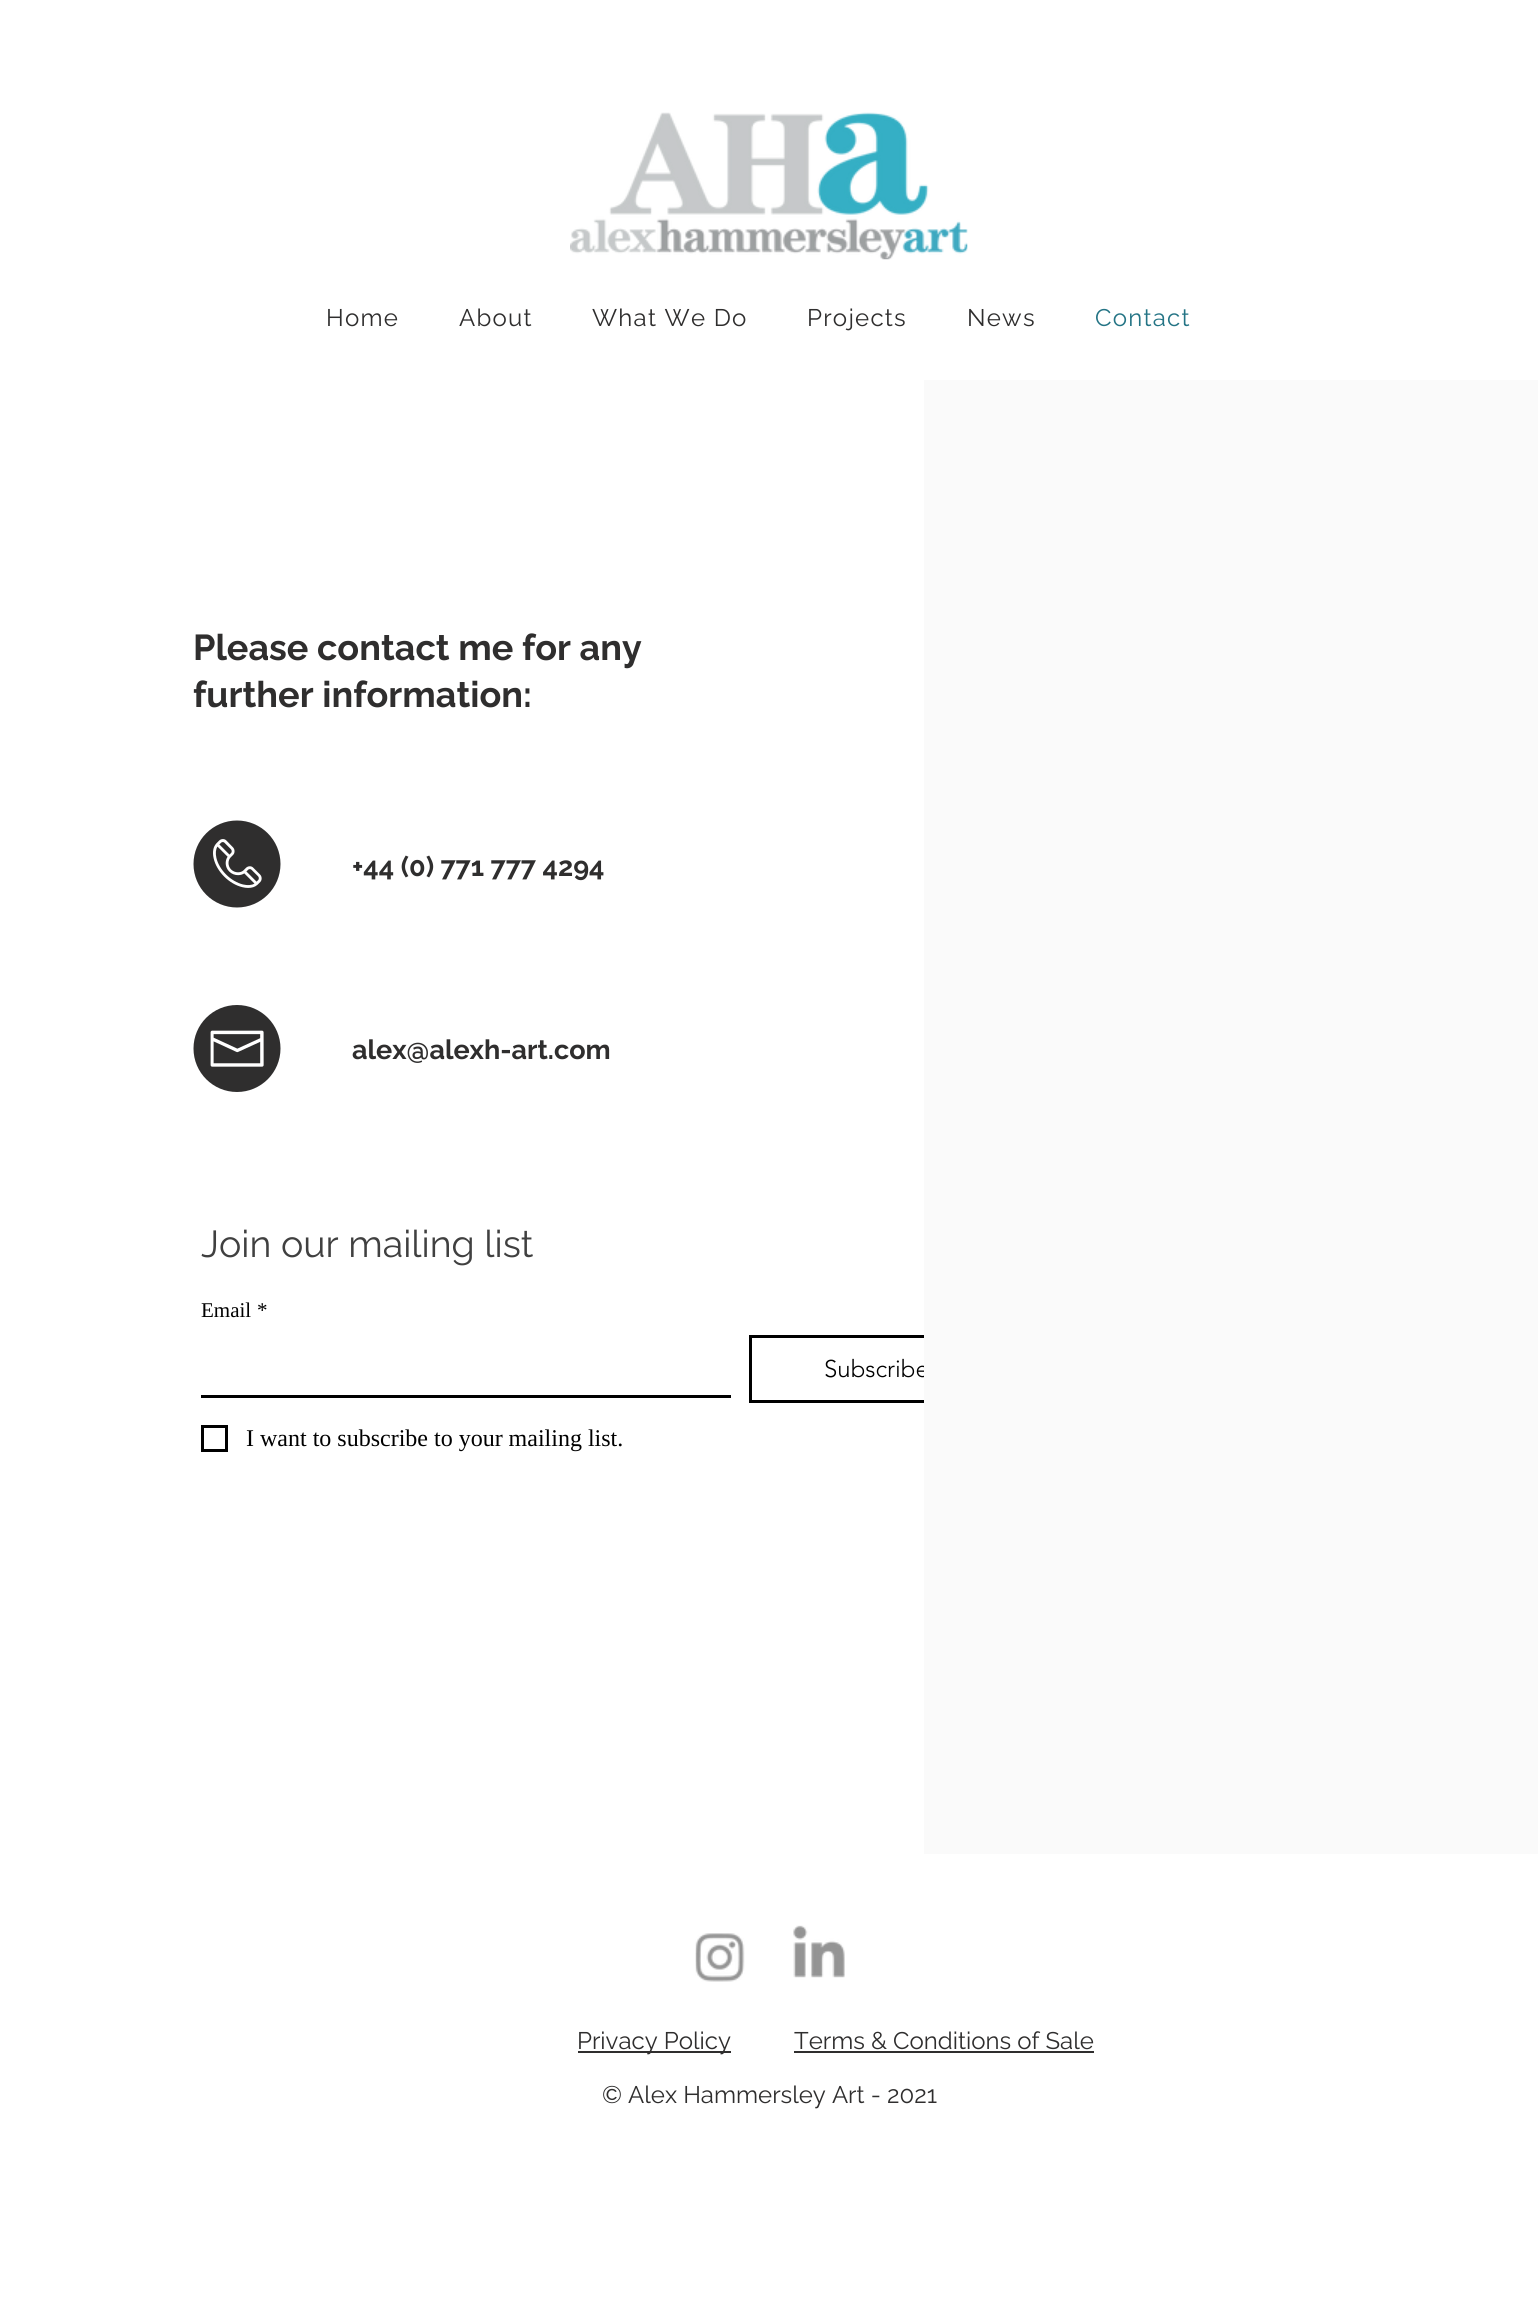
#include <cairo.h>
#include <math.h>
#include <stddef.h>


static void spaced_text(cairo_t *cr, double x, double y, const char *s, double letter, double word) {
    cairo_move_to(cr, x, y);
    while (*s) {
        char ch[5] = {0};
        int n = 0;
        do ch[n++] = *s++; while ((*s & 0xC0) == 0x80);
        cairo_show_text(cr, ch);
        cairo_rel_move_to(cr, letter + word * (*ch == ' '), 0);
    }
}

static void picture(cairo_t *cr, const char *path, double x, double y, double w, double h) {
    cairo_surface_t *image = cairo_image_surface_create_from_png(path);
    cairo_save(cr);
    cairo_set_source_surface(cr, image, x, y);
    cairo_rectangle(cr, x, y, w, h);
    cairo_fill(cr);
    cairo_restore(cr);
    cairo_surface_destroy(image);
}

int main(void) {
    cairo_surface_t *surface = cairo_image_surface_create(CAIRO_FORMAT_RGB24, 1538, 2324);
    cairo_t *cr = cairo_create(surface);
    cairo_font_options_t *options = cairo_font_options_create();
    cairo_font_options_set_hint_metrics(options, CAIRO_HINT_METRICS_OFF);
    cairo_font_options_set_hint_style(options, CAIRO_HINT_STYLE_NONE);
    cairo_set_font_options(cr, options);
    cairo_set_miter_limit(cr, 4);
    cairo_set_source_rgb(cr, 1, 1, 1);
    cairo_paint(cr);
    picture(cr, "img1.png", 570, 112, 398, 148);
    cairo_select_font_face(cr, "Raleway", CAIRO_FONT_SLANT_NORMAL, CAIRO_FONT_WEIGHT_NORMAL);
    cairo_set_font_size(cr, 24);
    cairo_set_source_rgb(cr, 0.184, 0.18, 0.18);
    spaced_text(cr, 326, 326, "Home", 1.25, 0);
    spaced_text(cr, 459, 326, "About", 1.25, 0);
    spaced_text(cr, 592, 326, "What We Do", 1.25, 0);
    spaced_text(cr, 807, 326, "Projects", 1.25, 0);
    spaced_text(cr, 967, 326, "News", 1.25, 0);
    cairo_set_source_rgb(cr, 0.141, 0.455, 0.522);
    spaced_text(cr, 1095, 326, "Contact", 1.25, 0);
    cairo_select_font_face(cr, "Raleway", CAIRO_FONT_SLANT_NORMAL, CAIRO_FONT_WEIGHT_BOLD);
    cairo_set_font_size(cr, 36);
    cairo_set_source_rgb(cr, 0.184, 0.18, 0.18);
    cairo_move_to(cr, 193, 660);
    cairo_show_text(cr, "Please contact me for any");
    cairo_move_to(cr, 193, 707);
    cairo_show_text(cr, "further information:");
    picture(cr, "img2.png", 193, 820, 88, 88);
    cairo_set_font_size(cr, 27);
    cairo_move_to(cr, 352, 876);
    cairo_show_text(cr, "+44 (0) 771 777 4294");
    picture(cr, "img3.png", 193, 1005, 88, 87);
    cairo_move_to(cr, 352, 1059);
    cairo_show_text(cr, "alex@alexh-art.com");
    cairo_select_font_face(cr, "Raleway", CAIRO_FONT_SLANT_NORMAL, CAIRO_FONT_WEIGHT_NORMAL);
    cairo_set_font_size(cr, 37.5);
    cairo_set_source_rgb(cr, 0.251, 0.251, 0.251);
    cairo_move_to(cr, 201, 1257);
    cairo_show_text(cr, "Join our mailing list");
    cairo_select_font_face(cr, "Liberation Serif", CAIRO_FONT_SLANT_NORMAL, CAIRO_FONT_WEIGHT_NORMAL);
    cairo_set_font_size(cr, 21);
    cairo_set_source_rgb(cr, 0, 0, 0);
    cairo_move_to(cr, 201, 1317);
    cairo_show_text(cr, "Email");
    cairo_move_to(cr, 257, 1317);
    cairo_show_text(cr, "*");
    cairo_rectangle(cr, 750.5, 1336.5, 253, 65);
    cairo_set_line_width(cr, 3);
    cairo_stroke(cr);
    cairo_select_font_face(cr, "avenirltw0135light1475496 Light", CAIRO_FONT_SLANT_NORMAL, CAIRO_FONT_WEIGHT_NORMAL);
    cairo_set_font_size(cr, 24);
    cairo_move_to(cr, 824, 1377);
    cairo_show_text(cr, "Subscribe");
    cairo_rectangle(cr, 201, 1395, 530, 3);
    cairo_fill(cr);
    cairo_rectangle(cr, 202.5, 1426.5, 24, 24);
    cairo_stroke(cr);
    cairo_select_font_face(cr, "Liberation Serif", CAIRO_FONT_SLANT_NORMAL, CAIRO_FONT_WEIGHT_NORMAL);
    cairo_move_to(cr, 246, 1446);
    cairo_show_text(cr, "I want to subscribe to your mailing list.");
    cairo_set_source_rgb(cr, 0.98, 0.98, 0.98);
    cairo_rectangle(cr, 924, 380, 614, 1474);
    cairo_fill(cr);
    picture(cr, "img4.png", 695, 1933, 50, 49);
    picture(cr, "img5.png", 793, 1925, 52, 53);
    cairo_set_source_rgb(cr, 0.184, 0.18, 0.18);
    cairo_rectangle(cr, 578, 2051, 153, 2);
    cairo_fill(cr);
    cairo_select_font_face(cr, "Raleway", CAIRO_FONT_SLANT_NORMAL, CAIRO_FONT_WEIGHT_NORMAL);
    cairo_move_to(cr, 577, 2049);
    cairo_show_text(cr, "Privacy Policy");
    cairo_move_to(cr, 794, 2049);
    cairo_show_text(cr, "Terms & Conditions of Sale");
    cairo_rectangle(cr, 794, 2051, 300, 2);
    cairo_fill(cr);
    cairo_move_to(cr, 602, 2103);
    cairo_show_text(cr, "© Alex Hammersley Art - 2021");
    cairo_surface_write_to_png(surface, "page.png");
    cairo_font_options_destroy(options);
    cairo_destroy(cr);
    cairo_surface_destroy(surface);
    return 0;
}
